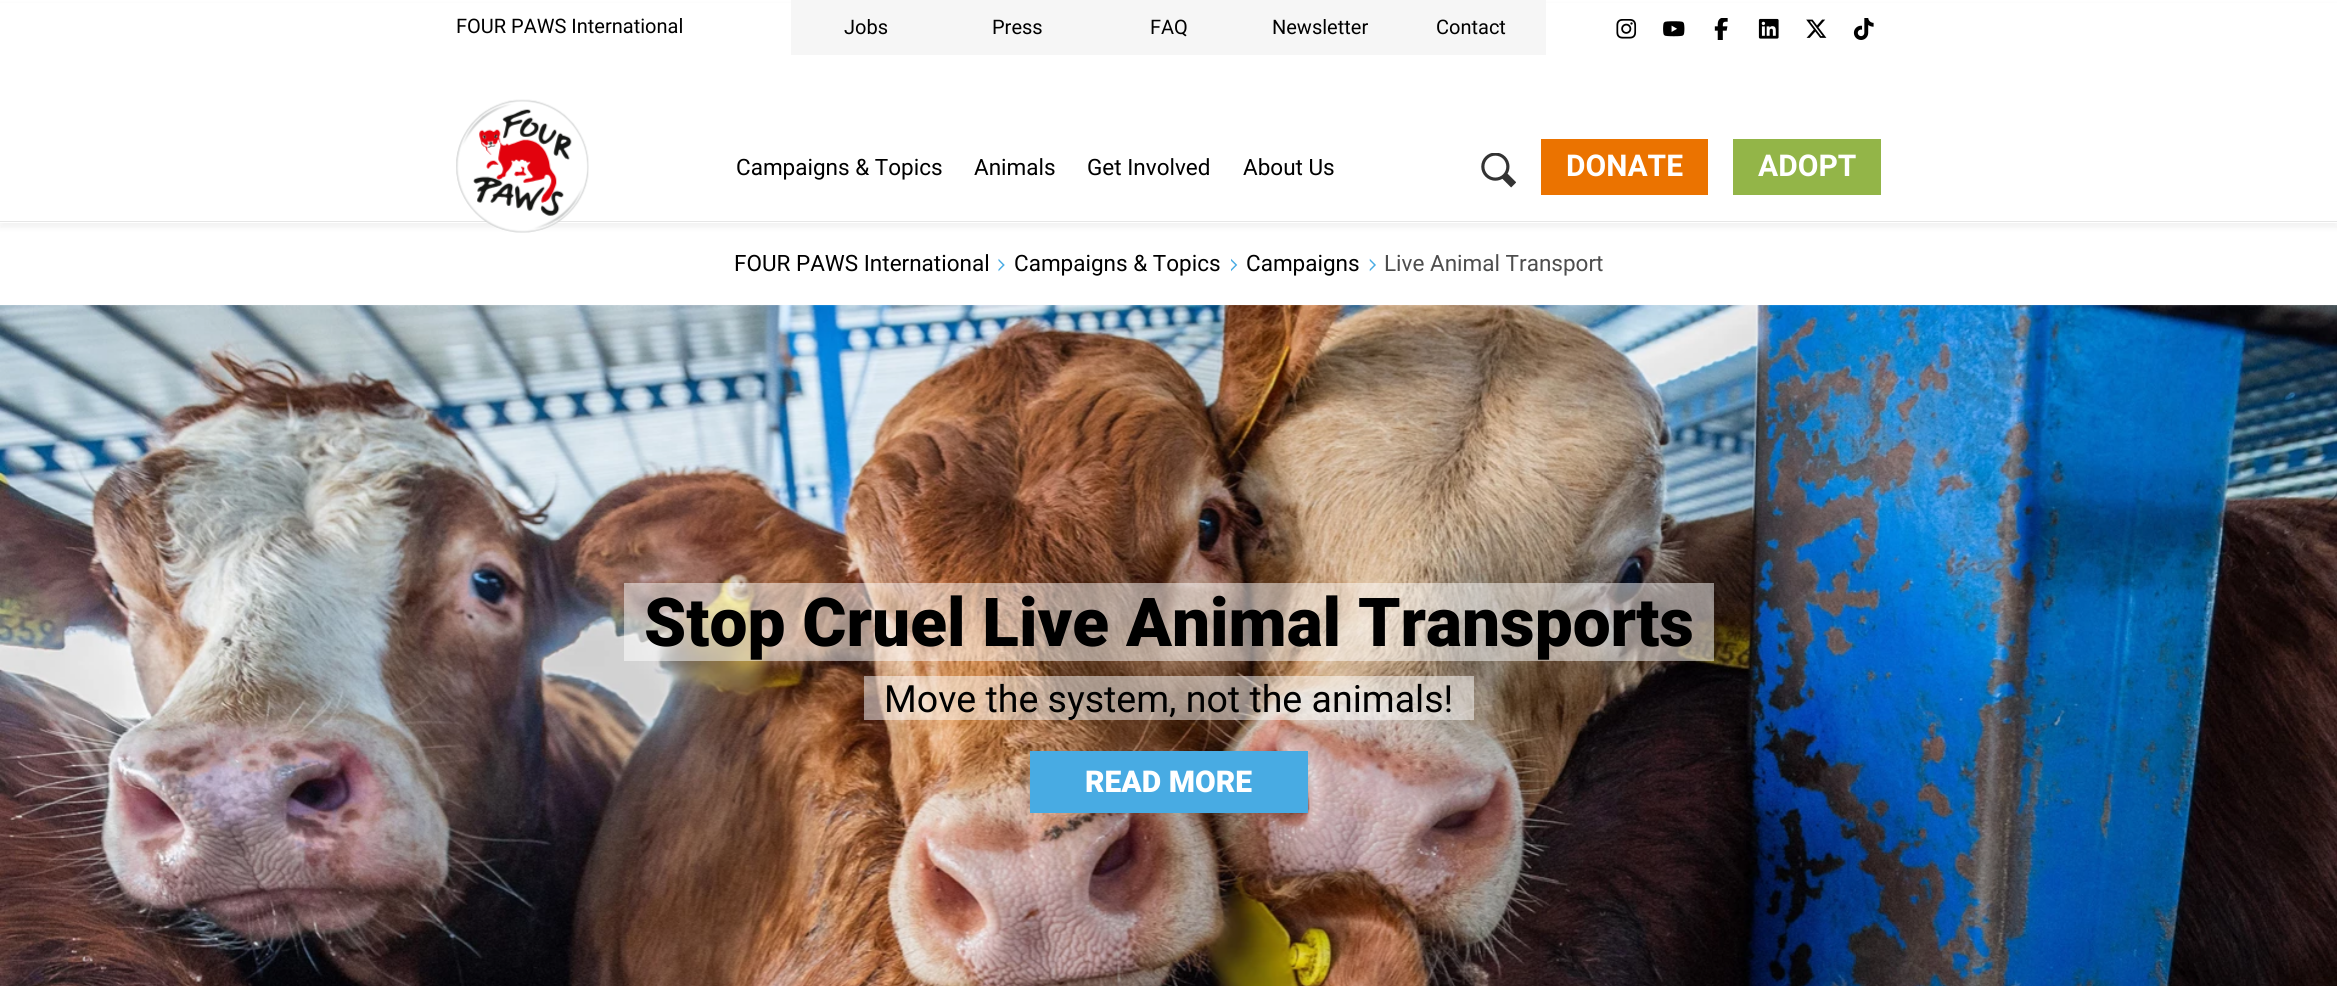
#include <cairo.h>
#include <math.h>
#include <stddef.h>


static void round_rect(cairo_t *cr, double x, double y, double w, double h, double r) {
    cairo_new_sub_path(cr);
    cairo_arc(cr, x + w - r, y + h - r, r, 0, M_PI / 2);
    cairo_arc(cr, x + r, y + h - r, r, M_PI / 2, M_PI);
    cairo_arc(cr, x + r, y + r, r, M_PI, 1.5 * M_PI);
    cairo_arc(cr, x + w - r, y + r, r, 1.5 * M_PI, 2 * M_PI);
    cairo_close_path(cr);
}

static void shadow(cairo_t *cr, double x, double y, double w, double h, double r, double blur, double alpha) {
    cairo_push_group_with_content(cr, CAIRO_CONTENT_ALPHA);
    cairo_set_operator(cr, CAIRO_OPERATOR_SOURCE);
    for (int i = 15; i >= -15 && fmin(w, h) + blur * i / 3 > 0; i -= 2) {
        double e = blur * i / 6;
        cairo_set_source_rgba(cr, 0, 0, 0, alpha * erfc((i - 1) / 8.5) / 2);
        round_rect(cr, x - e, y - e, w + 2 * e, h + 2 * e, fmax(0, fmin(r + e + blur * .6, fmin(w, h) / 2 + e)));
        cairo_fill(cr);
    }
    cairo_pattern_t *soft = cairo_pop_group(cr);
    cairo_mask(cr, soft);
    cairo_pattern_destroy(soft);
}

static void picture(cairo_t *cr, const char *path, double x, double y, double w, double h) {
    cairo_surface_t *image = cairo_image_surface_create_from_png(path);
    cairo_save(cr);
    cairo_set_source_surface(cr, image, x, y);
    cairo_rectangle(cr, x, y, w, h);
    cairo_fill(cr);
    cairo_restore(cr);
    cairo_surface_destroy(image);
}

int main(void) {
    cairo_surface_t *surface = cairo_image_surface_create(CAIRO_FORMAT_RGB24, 2337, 986);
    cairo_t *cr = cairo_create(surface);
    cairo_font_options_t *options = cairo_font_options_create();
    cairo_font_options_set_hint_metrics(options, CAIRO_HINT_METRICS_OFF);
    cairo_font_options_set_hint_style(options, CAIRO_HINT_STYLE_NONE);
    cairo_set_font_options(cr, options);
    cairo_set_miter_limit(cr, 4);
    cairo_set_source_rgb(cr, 1, 1, 1);
    cairo_paint(cr);
    cairo_set_source_rgb(cr, 0, 0, 0);
    shadow(cr, 0, 5, 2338, 223, 0, 2.5, 0.05);
    cairo_set_source_rgb(cr, 1, 1, 1);
    cairo_rectangle(cr, 0, 3, 2337, 220);
    cairo_fill(cr);
    cairo_set_source_rgb(cr, 0.902, 0.902, 0.902);
    cairo_rectangle(cr, 0, 221, 2337, 1);
    cairo_fill(cr);
    cairo_select_font_face(cr, "Roboto", CAIRO_FONT_SLANT_NORMAL, CAIRO_FONT_WEIGHT_NORMAL);
    cairo_set_font_size(cr, 20);
    cairo_set_source_rgb(cr, 0, 0, 0);
    cairo_move_to(cr, 456, 33);
    cairo_show_text(cr, "FOUR PAWS International");
    cairo_set_source_rgb(cr, 0.961, 0.961, 0.961);
    cairo_rectangle(cr, 791, 0, 755, 55);
    cairo_fill(cr);
    cairo_set_source_rgb(cr, 0, 0, 0);
    cairo_move_to(cr, 844, 34);
    cairo_show_text(cr, "Jobs");
    cairo_move_to(cr, 992, 34);
    cairo_show_text(cr, "Press");
    cairo_move_to(cr, 1150, 34);
    cairo_show_text(cr, "FAQ");
    cairo_move_to(cr, 1272, 34);
    cairo_show_text(cr, "Newsletter");
    cairo_move_to(cr, 1436, 34);
    cairo_show_text(cr, "Contact");
    picture(cr, "img1.png", 1616, 19, 21, 20);
    picture(cr, "img2.png", 1663, 21, 22, 16);
    picture(cr, "img3.png", 1714, 18, 14, 22);
    picture(cr, "img4.png", 1758, 18, 21, 21);
    picture(cr, "img5.png", 1806, 19, 21, 19);
    picture(cr, "img6.png", 1853, 18, 21, 22);
    picture(cr, "img7.png", 456, 99, 133, 134);
    cairo_set_font_size(cr, 22.5);
    cairo_move_to(cr, 736, 175);
    cairo_show_text(cr, "Campaigns & Topics");
    cairo_move_to(cr, 974, 175);
    cairo_show_text(cr, "Animals");
    cairo_move_to(cr, 1087, 175);
    cairo_show_text(cr, "Get Involved");
    cairo_move_to(cr, 1243, 175);
    cairo_show_text(cr, "About Us");
    picture(cr, "img8.png", 1481, 153, 35, 35);
    cairo_set_source_rgb(cr, 0.918, 0.451, 0);
    cairo_rectangle(cr, 1541, 139, 167, 56);
    cairo_fill(cr);
    cairo_select_font_face(cr, "Roboto", CAIRO_FONT_SLANT_NORMAL, CAIRO_FONT_WEIGHT_BOLD);
    cairo_set_font_size(cr, 30);
    cairo_set_source_rgb(cr, 1, 1, 1);
    cairo_move_to(cr, 1566, 176);
    cairo_show_text(cr, "DONATE");
    cairo_set_source_rgb(cr, 0.576, 0.71, 0.282);
    cairo_rectangle(cr, 1733, 139, 148, 56);
    cairo_fill(cr);
    cairo_set_source_rgb(cr, 1, 1, 1);
    cairo_move_to(cr, 1758, 176);
    cairo_show_text(cr, "ADOPT");
    cairo_select_font_face(cr, "Roboto", CAIRO_FONT_SLANT_NORMAL, CAIRO_FONT_WEIGHT_NORMAL);
    cairo_set_font_size(cr, 22.5);
    cairo_set_source_rgb(cr, 0, 0, 0);
    cairo_move_to(cr, 734, 271);
    cairo_show_text(cr, "FOUR PAWS International");
    picture(cr, "img9.png", 998, 258, 7, 14);
    cairo_move_to(cr, 1014, 271);
    cairo_show_text(cr, "Campaigns & Topics");
    picture(cr, "img10.png", 1231, 258, 7, 14);
    cairo_move_to(cr, 1246, 271);
    cairo_show_text(cr, "Campaigns");
    picture(cr, "img11.png", 1369, 258, 7, 14);
    cairo_set_source_rgb(cr, 0.302, 0.302, 0.302);
    cairo_move_to(cr, 1384, 271);
    cairo_show_text(cr, "Live Animal Transport");
    picture(cr, "img12.png", 0, 305, 2337, 681);
    cairo_set_source_rgba(cr, 1, 1, 1, 0.5);
    cairo_rectangle(cr, 624, 583, 1090, 78);
    cairo_fill(cr);
    cairo_select_font_face(cr, "Roboto Black", CAIRO_FONT_SLANT_NORMAL, CAIRO_FONT_WEIGHT_NORMAL);
    cairo_set_font_size(cr, 67.5);
    cairo_set_source_rgb(cr, 0, 0, 0);
    cairo_move_to(cr, 644, 646);
    cairo_show_text(cr, "Stop Cruel Live Animal Transports");
    cairo_set_source_rgba(cr, 1, 1, 1, 0.5);
    cairo_rectangle(cr, 864, 676, 610, 44);
    cairo_fill(cr);
    cairo_select_font_face(cr, "Roboto", CAIRO_FONT_SLANT_NORMAL, CAIRO_FONT_WEIGHT_NORMAL);
    cairo_set_font_size(cr, 37.5);
    cairo_set_source_rgb(cr, 0, 0, 0);
    cairo_move_to(cr, 884, 712);
    cairo_show_text(cr, "Move the system, not the animals!");
    cairo_set_source_rgb(cr, 0.282, 0.671, 0.89);
    cairo_rectangle(cr, 1030, 751, 278, 62);
    cairo_fill(cr);
    cairo_select_font_face(cr, "Roboto Black", CAIRO_FONT_SLANT_NORMAL, CAIRO_FONT_WEIGHT_NORMAL);
    cairo_set_font_size(cr, 30);
    cairo_set_source_rgb(cr, 1, 1, 1);
    cairo_move_to(cr, 1085, 792);
    cairo_show_text(cr, "READ MORE");
    cairo_surface_write_to_png(surface, "page.png");
    cairo_font_options_destroy(options);
    cairo_destroy(cr);
    cairo_surface_destroy(surface);
    return 0;
}
